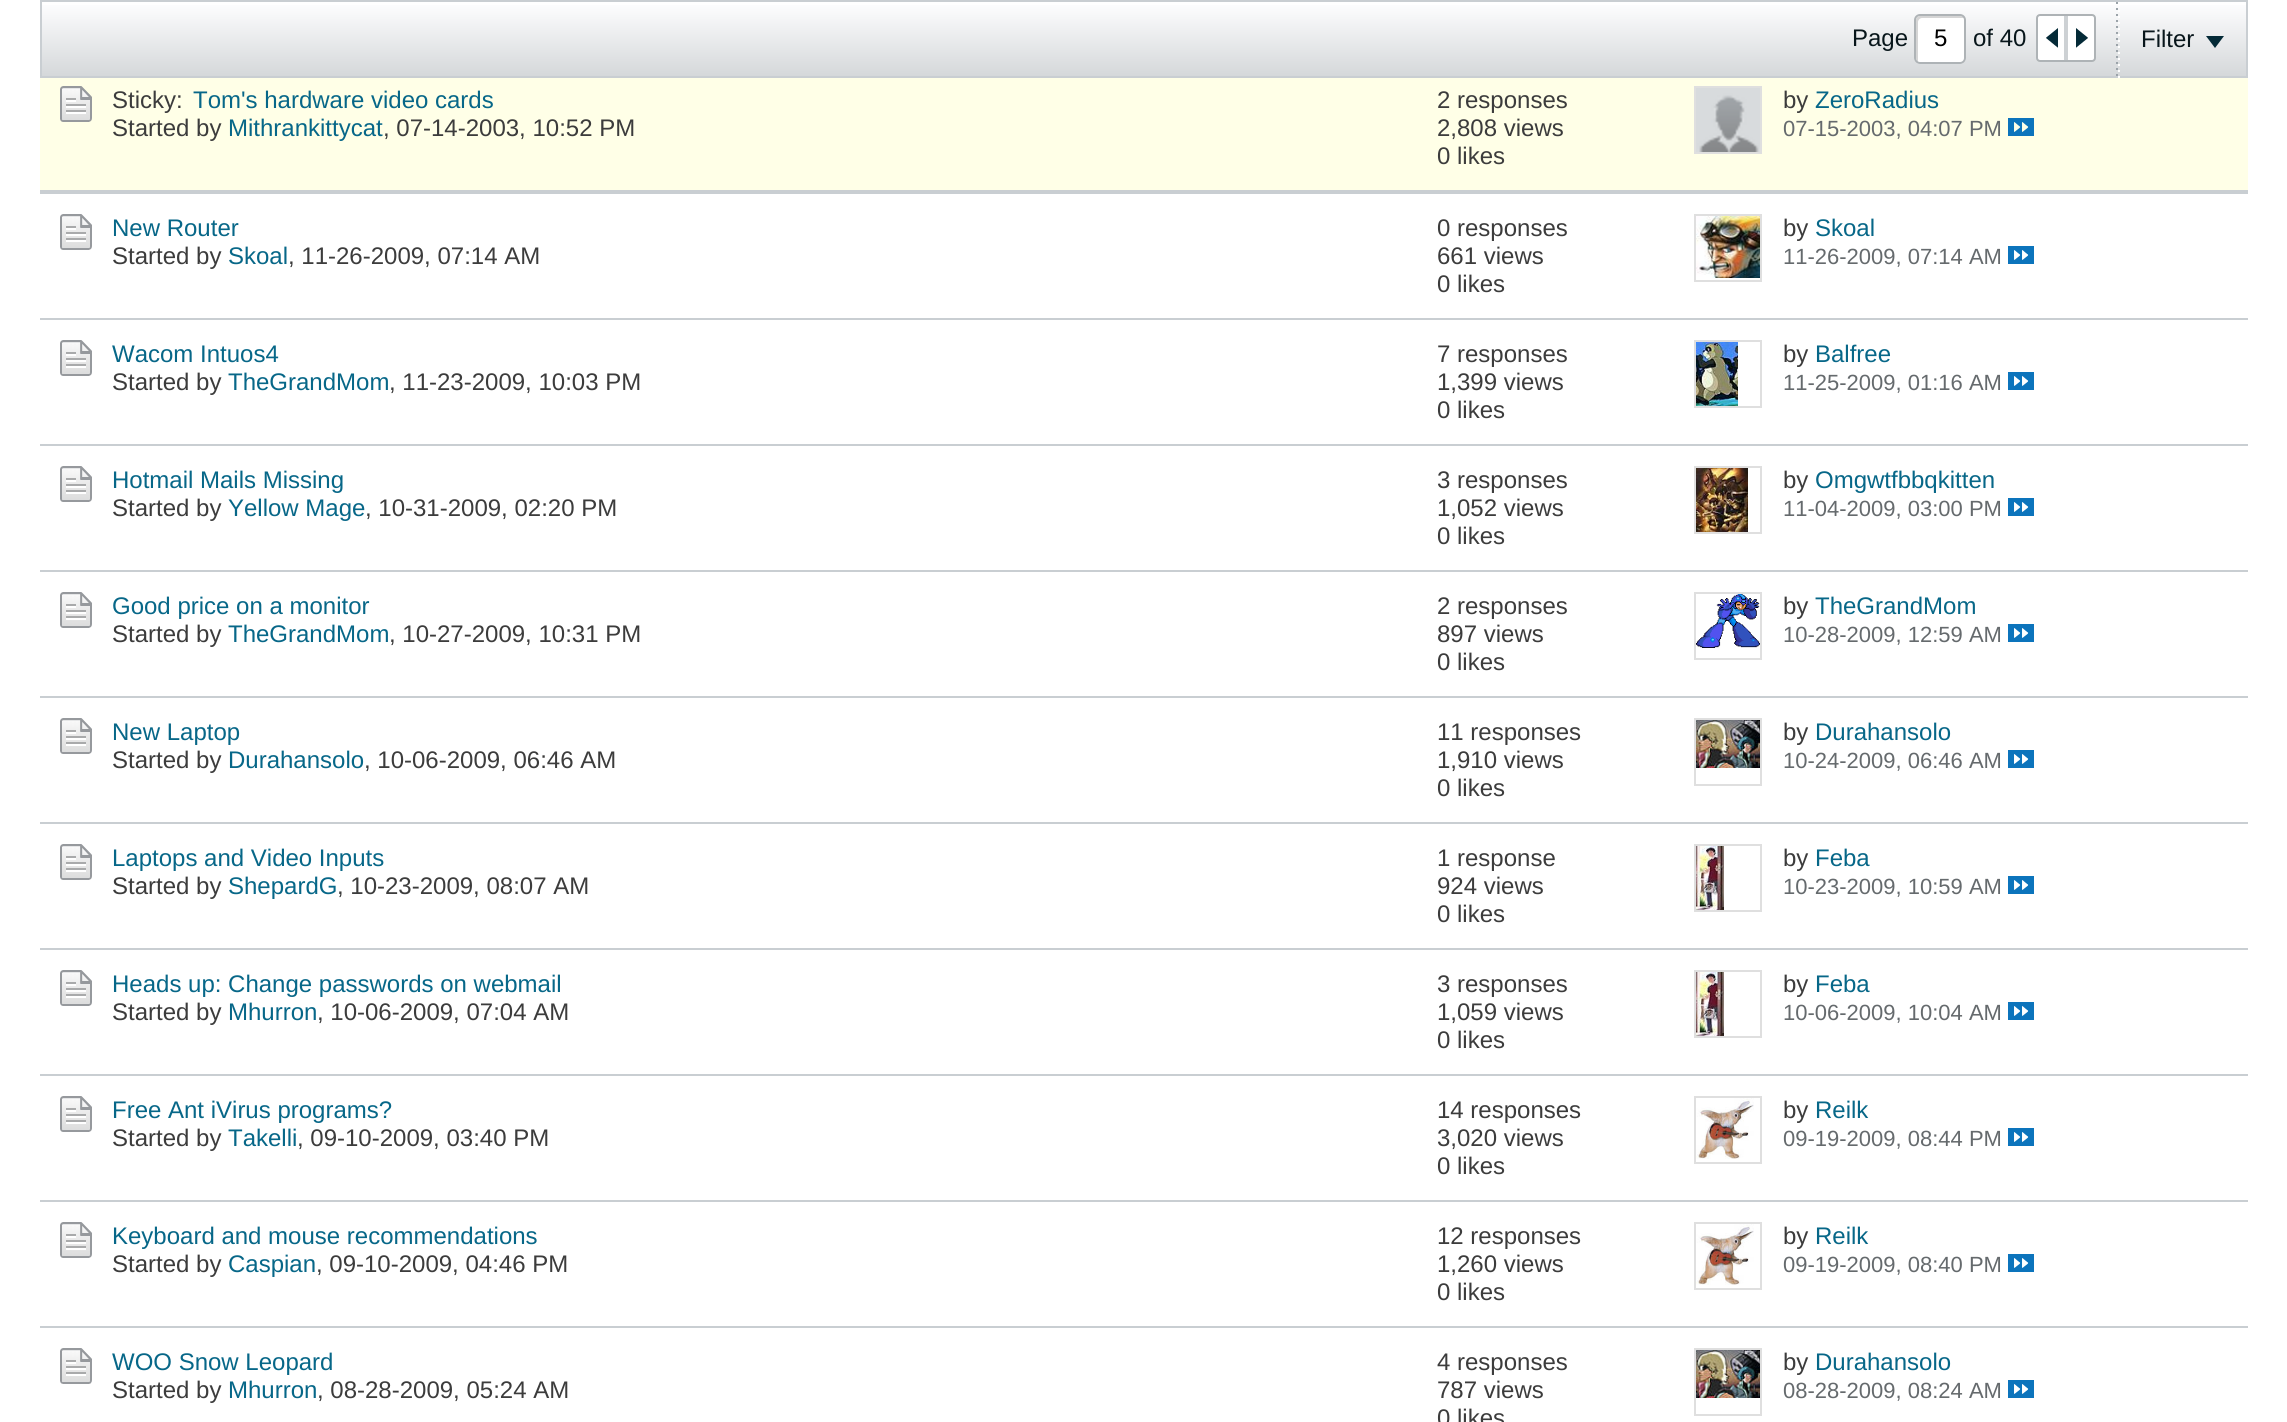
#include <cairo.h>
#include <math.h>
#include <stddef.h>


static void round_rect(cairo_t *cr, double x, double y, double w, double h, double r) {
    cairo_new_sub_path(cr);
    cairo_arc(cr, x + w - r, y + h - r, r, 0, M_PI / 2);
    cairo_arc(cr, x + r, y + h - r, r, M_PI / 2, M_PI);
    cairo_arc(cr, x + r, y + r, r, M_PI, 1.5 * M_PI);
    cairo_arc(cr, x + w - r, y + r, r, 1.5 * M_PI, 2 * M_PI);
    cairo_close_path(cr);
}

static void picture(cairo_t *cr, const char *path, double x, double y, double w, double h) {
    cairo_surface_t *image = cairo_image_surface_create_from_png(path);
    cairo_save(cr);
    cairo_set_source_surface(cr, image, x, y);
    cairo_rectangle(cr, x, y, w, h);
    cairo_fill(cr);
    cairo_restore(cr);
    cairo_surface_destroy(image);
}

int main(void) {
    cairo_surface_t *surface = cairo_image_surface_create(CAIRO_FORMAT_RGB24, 2287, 1422);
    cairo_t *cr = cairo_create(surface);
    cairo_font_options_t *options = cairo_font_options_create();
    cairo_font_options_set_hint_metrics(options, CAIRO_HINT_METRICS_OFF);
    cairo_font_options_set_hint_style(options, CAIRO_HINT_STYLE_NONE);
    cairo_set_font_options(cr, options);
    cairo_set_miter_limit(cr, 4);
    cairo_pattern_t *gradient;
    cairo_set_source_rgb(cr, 1, 1, 1);
    cairo_paint(cr);
    gradient = cairo_pattern_create_linear(1144, 2, 1144, 76);
    cairo_pattern_add_color_stop_rgba(gradient, 0, 0.996, 0.996, 1, 1);
    cairo_pattern_add_color_stop_rgba(gradient, 1, 0.835, 0.847, 0.855, 1);
    cairo_set_source(cr, gradient);
    cairo_pattern_destroy(gradient);
    cairo_rectangle(cr, 42, 5, 2204, 71);
    cairo_fill(cr);
    cairo_rectangle(cr, 41, 1, 2206, 76);
    cairo_set_source_rgb(cr, 0.788, 0.808, 0.824);
    cairo_stroke(cr);
    cairo_select_font_face(cr, "Liberation Sans", CAIRO_FONT_SLANT_NORMAL, CAIRO_FONT_WEIGHT_NORMAL);
    cairo_set_font_size(cr, 24);
    cairo_set_source_rgb(cr, 0.035, 0.086, 0.106);
    cairo_move_to(cr, 1852, 46);
    cairo_show_text(cr, "Page");
    cairo_set_source_rgb(cr, 1, 1, 1);
    round_rect(cr, 1914, 14, 52, 50, 6);
    cairo_fill(cr);
    cairo_set_source_rgb(cr, 0.835, 0.835, 0.835);
    cairo_new_path(cr);
    cairo_move_to(cr, 1922, 18);
    cairo_line_to(cr, 1962, 18);
    cairo_line_to(cr, 1964, 18);
    cairo_curve_to(cr, 1963, 17, 1962, 16, 1960, 16);
    cairo_line_to(cr, 1920, 16);
    cairo_curve_to(cr, 1918, 16, 1916, 18, 1916, 20);
    cairo_line_to(cr, 1916, 58);
    cairo_curve_to(cr, 1916, 60, 1917, 61, 1918, 62);
    cairo_line_to(cr, 1918, 60);
    cairo_line_to(cr, 1918, 22);
    cairo_curve_to(cr, 1918, 20, 1920, 18, 1922, 18);
    cairo_close_path(cr);
    cairo_fill(cr);
    round_rect(cr, 1915, 15, 50, 48, 5);
    cairo_set_source_rgb(cr, 0.682, 0.702, 0.714);
    cairo_stroke(cr);
    cairo_set_source_rgb(cr, 0, 0, 0);
    cairo_move_to(cr, 1934, 46);
    cairo_show_text(cr, "5");
    cairo_set_source_rgb(cr, 0.035, 0.086, 0.106);
    cairo_move_to(cr, 1973, 46);
    cairo_show_text(cr, "of 40");
    cairo_set_source_rgb(cr, 1, 1, 1);
    round_rect(cr, 2037, 15, 58, 46, 3);
    cairo_fill_preserve(cr);
    cairo_set_source_rgb(cr, 0.682, 0.702, 0.714);
    cairo_stroke(cr);
    cairo_set_source_rgb(cr, 0.804, 0.82, 0.831);
    cairo_rectangle(cr, 2064, 16, 4, 44);
    cairo_fill(cr);
    picture(cr, "img1.png", 2046, 28, 12, 20);
    picture(cr, "img2.png", 2076, 28, 12, 20);
    cairo_set_source_rgb(cr, 0.608, 0.639, 0.663);
    cairo_rectangle(cr, 2116, 2, 2, 2);
    cairo_fill(cr);
    cairo_rectangle(cr, 2116, 8, 2, 2);
    cairo_fill(cr);
    cairo_rectangle(cr, 2116, 14, 2, 2);
    cairo_fill(cr);
    cairo_rectangle(cr, 2116, 20, 2, 2);
    cairo_fill(cr);
    cairo_rectangle(cr, 2116, 26, 2, 2);
    cairo_fill(cr);
    cairo_rectangle(cr, 2116, 32, 2, 2);
    cairo_fill(cr);
    cairo_rectangle(cr, 2116, 38, 2, 2);
    cairo_fill(cr);
    cairo_rectangle(cr, 2116, 44, 2, 2);
    cairo_fill(cr);
    cairo_rectangle(cr, 2116, 50, 2, 2);
    cairo_fill(cr);
    cairo_rectangle(cr, 2116, 56, 2, 2);
    cairo_fill(cr);
    cairo_rectangle(cr, 2116, 62, 2, 2);
    cairo_fill(cr);
    cairo_rectangle(cr, 2116, 68, 2, 2);
    cairo_fill(cr);
    cairo_rectangle(cr, 2116, 74, 2, 2);
    cairo_fill(cr);
    cairo_set_source_rgb(cr, 1, 1, 1);
    cairo_rectangle(cr, 2118, 5, 2, 1);
    cairo_fill(cr);
    cairo_rectangle(cr, 2118, 10, 2, 2);
    cairo_fill(cr);
    cairo_rectangle(cr, 2118, 16, 2, 2);
    cairo_fill(cr);
    cairo_rectangle(cr, 2118, 22, 2, 2);
    cairo_fill(cr);
    cairo_rectangle(cr, 2118, 28, 2, 2);
    cairo_fill(cr);
    cairo_rectangle(cr, 2118, 34, 2, 2);
    cairo_fill(cr);
    cairo_rectangle(cr, 2118, 40, 2, 2);
    cairo_fill(cr);
    cairo_rectangle(cr, 2118, 46, 2, 2);
    cairo_fill(cr);
    cairo_rectangle(cr, 2118, 52, 2, 2);
    cairo_fill(cr);
    cairo_rectangle(cr, 2118, 58, 2, 2);
    cairo_fill(cr);
    cairo_rectangle(cr, 2118, 64, 2, 2);
    cairo_fill(cr);
    cairo_rectangle(cr, 2118, 70, 2, 2);
    cairo_fill(cr);
    cairo_rectangle(cr, 2118, 76, 2, 2);
    cairo_fill(cr);
    cairo_set_source_rgb(cr, 0.035, 0.086, 0.106);
    cairo_move_to(cr, 2141, 47);
    cairo_show_text(cr, "Filter");
    picture(cr, "img3.png", 2206, 36, 18, 12);
    cairo_set_source_rgb(cr, 1, 1, 0.906);
    cairo_rectangle(cr, 40, 78, 2208, 112);
    cairo_fill(cr);
    picture(cr, "img4.png", 60, 86, 32, 36);
    cairo_set_source_rgb(cr, 0.235, 0.235, 0.235);
    cairo_move_to(cr, 112, 108);
    cairo_show_text(cr, "Sticky:");
    cairo_set_source_rgb(cr, 0.031, 0.404, 0.533);
    cairo_move_to(cr, 193, 108);
    cairo_show_text(cr, "Tom's hardware video cards");
    cairo_set_source_rgb(cr, 0.235, 0.235, 0.235);
    cairo_move_to(cr, 112, 136);
    cairo_show_text(cr, "Started by");
    cairo_set_source_rgb(cr, 0.031, 0.404, 0.533);
    cairo_move_to(cr, 228, 136);
    cairo_show_text(cr, "Mithrankittycat");
    cairo_set_source_rgb(cr, 0.235, 0.235, 0.235);
    cairo_move_to(cr, 383, 136);
    cairo_show_text(cr, ", 07-14-2003, 10:52 PM");
    cairo_move_to(cr, 1437, 108);
    cairo_show_text(cr, "2 responses");
    cairo_move_to(cr, 1437, 136);
    cairo_show_text(cr, "2,808 views");
    cairo_move_to(cr, 1437, 164);
    cairo_show_text(cr, "0 likes");
    cairo_rectangle(cr, 1695, 87, 66, 66);
    cairo_set_source_rgb(cr, 0.875, 0.875, 0.875);
    cairo_stroke(cr);
    picture(cr, "img5.png", 1696, 88, 64, 64);
    cairo_set_source_rgb(cr, 0.235, 0.235, 0.235);
    cairo_move_to(cr, 1783, 108);
    cairo_show_text(cr, "by");
    cairo_set_source_rgb(cr, 0.031, 0.404, 0.533);
    cairo_move_to(cr, 1815, 108);
    cairo_show_text(cr, "ZeroRadius");
    cairo_set_font_size(cr, 22);
    cairo_set_source_rgb(cr, 0.396, 0.416, 0.427);
    cairo_move_to(cr, 1783, 136);
    cairo_show_text(cr, "07-15-2003, 04:07 PM");
    picture(cr, "img6.png", 2008, 118, 26, 18);
    cairo_set_source_rgb(cr, 0.788, 0.808, 0.824);
    cairo_rectangle(cr, 40, 190, 72, 4);
    cairo_fill(cr);
    picture(cr, "img7.png", 60, 214, 32, 36);
    cairo_rectangle(cr, 112, 190, 2136, 4);
    cairo_fill(cr);
    cairo_set_font_size(cr, 24);
    cairo_set_source_rgb(cr, 0.031, 0.404, 0.533);
    cairo_move_to(cr, 112, 236);
    cairo_show_text(cr, "New Router");
    cairo_set_source_rgb(cr, 0.235, 0.235, 0.235);
    cairo_move_to(cr, 112, 264);
    cairo_show_text(cr, "Started by");
    cairo_set_source_rgb(cr, 0.031, 0.404, 0.533);
    cairo_move_to(cr, 228, 264);
    cairo_show_text(cr, "Skoal");
    cairo_set_source_rgb(cr, 0.235, 0.235, 0.235);
    cairo_move_to(cr, 288, 264);
    cairo_show_text(cr, ", 11-26-2009, 07:14 AM");
    cairo_move_to(cr, 1437, 236);
    cairo_show_text(cr, "0 responses");
    cairo_move_to(cr, 1437, 264);
    cairo_show_text(cr, "661 views");
    cairo_move_to(cr, 1437, 292);
    cairo_show_text(cr, "0 likes");
    cairo_rectangle(cr, 1695, 215, 66, 66);
    cairo_set_source_rgb(cr, 0.875, 0.875, 0.875);
    cairo_stroke(cr);
    picture(cr, "img8.png", 1696, 216, 64, 62);
    cairo_set_source_rgb(cr, 0.235, 0.235, 0.235);
    cairo_move_to(cr, 1783, 236);
    cairo_show_text(cr, "by");
    cairo_set_source_rgb(cr, 0.031, 0.404, 0.533);
    cairo_move_to(cr, 1815, 236);
    cairo_show_text(cr, "Skoal");
    cairo_set_font_size(cr, 22);
    cairo_set_source_rgb(cr, 0.396, 0.416, 0.427);
    cairo_move_to(cr, 1783, 264);
    cairo_show_text(cr, "11-26-2009, 07:14 AM");
    picture(cr, "img9.png", 2008, 246, 26, 18);
    cairo_set_source_rgb(cr, 0.788, 0.808, 0.824);
    cairo_rectangle(cr, 40, 318, 72, 2);
    cairo_fill(cr);
    picture(cr, "img7.png", 60, 340, 32, 36);
    cairo_rectangle(cr, 112, 318, 2136, 2);
    cairo_fill(cr);
    cairo_set_font_size(cr, 24);
    cairo_set_source_rgb(cr, 0.031, 0.404, 0.533);
    cairo_move_to(cr, 112, 362);
    cairo_show_text(cr, "Wacom Intuos4");
    cairo_set_source_rgb(cr, 0.235, 0.235, 0.235);
    cairo_move_to(cr, 112, 390);
    cairo_show_text(cr, "Started by");
    cairo_set_source_rgb(cr, 0.031, 0.404, 0.533);
    cairo_move_to(cr, 228, 390);
    cairo_show_text(cr, "TheGrandMom");
    cairo_set_source_rgb(cr, 0.235, 0.235, 0.235);
    cairo_move_to(cr, 389, 390);
    cairo_show_text(cr, ", 11-23-2009, 10:03 PM");
    cairo_move_to(cr, 1437, 362);
    cairo_show_text(cr, "7 responses");
    cairo_move_to(cr, 1437, 390);
    cairo_show_text(cr, "1,399 views");
    cairo_move_to(cr, 1437, 418);
    cairo_show_text(cr, "0 likes");
    cairo_rectangle(cr, 1695, 341, 66, 66);
    cairo_set_source_rgb(cr, 0.875, 0.875, 0.875);
    cairo_stroke(cr);
    picture(cr, "img10.png", 1696, 342, 42, 64);
    cairo_set_source_rgb(cr, 0.235, 0.235, 0.235);
    cairo_move_to(cr, 1783, 362);
    cairo_show_text(cr, "by");
    cairo_set_source_rgb(cr, 0.031, 0.404, 0.533);
    cairo_move_to(cr, 1815, 362);
    cairo_show_text(cr, "Balfree");
    cairo_set_font_size(cr, 22);
    cairo_set_source_rgb(cr, 0.396, 0.416, 0.427);
    cairo_move_to(cr, 1783, 390);
    cairo_show_text(cr, "11-25-2009, 01:16 AM");
    picture(cr, "img9.png", 2008, 372, 26, 18);
    cairo_set_source_rgb(cr, 0.788, 0.808, 0.824);
    cairo_rectangle(cr, 40, 444, 72, 2);
    cairo_fill(cr);
    picture(cr, "img7.png", 60, 466, 32, 36);
    cairo_rectangle(cr, 112, 444, 2136, 2);
    cairo_fill(cr);
    cairo_set_font_size(cr, 24);
    cairo_set_source_rgb(cr, 0.031, 0.404, 0.533);
    cairo_move_to(cr, 112, 488);
    cairo_show_text(cr, "Hotmail Mails Missing");
    cairo_set_source_rgb(cr, 0.235, 0.235, 0.235);
    cairo_move_to(cr, 112, 516);
    cairo_show_text(cr, "Started by");
    cairo_set_source_rgb(cr, 0.031, 0.404, 0.533);
    cairo_move_to(cr, 228, 516);
    cairo_show_text(cr, "Yellow Mage");
    cairo_set_source_rgb(cr, 0.235, 0.235, 0.235);
    cairo_move_to(cr, 365, 516);
    cairo_show_text(cr, ", 10-31-2009, 02:20 PM");
    cairo_move_to(cr, 1437, 488);
    cairo_show_text(cr, "3 responses");
    cairo_move_to(cr, 1437, 516);
    cairo_show_text(cr, "1,052 views");
    cairo_move_to(cr, 1437, 544);
    cairo_show_text(cr, "0 likes");
    cairo_rectangle(cr, 1695, 467, 66, 66);
    cairo_set_source_rgb(cr, 0.875, 0.875, 0.875);
    cairo_stroke(cr);
    picture(cr, "img11.png", 1696, 468, 52, 64);
    cairo_set_source_rgb(cr, 0.235, 0.235, 0.235);
    cairo_move_to(cr, 1783, 488);
    cairo_show_text(cr, "by");
    cairo_set_source_rgb(cr, 0.031, 0.404, 0.533);
    cairo_move_to(cr, 1815, 488);
    cairo_show_text(cr, "Omgwtfbbqkitten");
    cairo_set_font_size(cr, 22);
    cairo_set_source_rgb(cr, 0.396, 0.416, 0.427);
    cairo_move_to(cr, 1783, 516);
    cairo_show_text(cr, "11-04-2009, 03:00 PM");
    picture(cr, "img9.png", 2008, 498, 26, 18);
    cairo_set_source_rgb(cr, 0.788, 0.808, 0.824);
    cairo_rectangle(cr, 40, 570, 72, 2);
    cairo_fill(cr);
    picture(cr, "img7.png", 60, 592, 32, 36);
    cairo_rectangle(cr, 112, 570, 2136, 2);
    cairo_fill(cr);
    cairo_set_font_size(cr, 24);
    cairo_set_source_rgb(cr, 0.031, 0.404, 0.533);
    cairo_move_to(cr, 112, 614);
    cairo_show_text(cr, "Good price on a monitor");
    cairo_set_source_rgb(cr, 0.235, 0.235, 0.235);
    cairo_move_to(cr, 112, 642);
    cairo_show_text(cr, "Started by");
    cairo_set_source_rgb(cr, 0.031, 0.404, 0.533);
    cairo_move_to(cr, 228, 642);
    cairo_show_text(cr, "TheGrandMom");
    cairo_set_source_rgb(cr, 0.235, 0.235, 0.235);
    cairo_move_to(cr, 389, 642);
    cairo_show_text(cr, ", 10-27-2009, 10:31 PM");
    cairo_move_to(cr, 1437, 614);
    cairo_show_text(cr, "2 responses");
    cairo_move_to(cr, 1437, 642);
    cairo_show_text(cr, "897 views");
    cairo_move_to(cr, 1437, 670);
    cairo_show_text(cr, "0 likes");
    cairo_rectangle(cr, 1695, 593, 66, 66);
    cairo_set_source_rgb(cr, 0.875, 0.875, 0.875);
    cairo_stroke(cr);
    picture(cr, "img12.png", 1696, 594, 64, 54);
    cairo_set_source_rgb(cr, 0.235, 0.235, 0.235);
    cairo_move_to(cr, 1783, 614);
    cairo_show_text(cr, "by");
    cairo_set_source_rgb(cr, 0.031, 0.404, 0.533);
    cairo_move_to(cr, 1815, 614);
    cairo_show_text(cr, "TheGrandMom");
    cairo_set_font_size(cr, 22);
    cairo_set_source_rgb(cr, 0.396, 0.416, 0.427);
    cairo_move_to(cr, 1783, 642);
    cairo_show_text(cr, "10-28-2009, 12:59 AM");
    picture(cr, "img9.png", 2008, 624, 26, 18);
    cairo_set_source_rgb(cr, 0.788, 0.808, 0.824);
    cairo_rectangle(cr, 40, 696, 72, 2);
    cairo_fill(cr);
    picture(cr, "img7.png", 60, 718, 32, 36);
    cairo_rectangle(cr, 112, 696, 2136, 2);
    cairo_fill(cr);
    cairo_set_font_size(cr, 24);
    cairo_set_source_rgb(cr, 0.031, 0.404, 0.533);
    cairo_move_to(cr, 112, 740);
    cairo_show_text(cr, "New Laptop");
    cairo_set_source_rgb(cr, 0.235, 0.235, 0.235);
    cairo_move_to(cr, 112, 768);
    cairo_show_text(cr, "Started by");
    cairo_set_source_rgb(cr, 0.031, 0.404, 0.533);
    cairo_move_to(cr, 228, 768);
    cairo_show_text(cr, "Durahansolo");
    cairo_set_source_rgb(cr, 0.235, 0.235, 0.235);
    cairo_move_to(cr, 364, 768);
    cairo_show_text(cr, ", 10-06-2009, 06:46 AM");
    cairo_move_to(cr, 1437, 740);
    cairo_show_text(cr, "11 responses");
    cairo_move_to(cr, 1437, 768);
    cairo_show_text(cr, "1,910 views");
    cairo_move_to(cr, 1437, 796);
    cairo_show_text(cr, "0 likes");
    cairo_rectangle(cr, 1695, 719, 66, 66);
    cairo_set_source_rgb(cr, 0.875, 0.875, 0.875);
    cairo_stroke(cr);
    picture(cr, "img13.png", 1696, 720, 64, 48);
    cairo_set_source_rgb(cr, 0.235, 0.235, 0.235);
    cairo_move_to(cr, 1783, 740);
    cairo_show_text(cr, "by");
    cairo_set_source_rgb(cr, 0.031, 0.404, 0.533);
    cairo_move_to(cr, 1815, 740);
    cairo_show_text(cr, "Durahansolo");
    cairo_set_font_size(cr, 22);
    cairo_set_source_rgb(cr, 0.396, 0.416, 0.427);
    cairo_move_to(cr, 1783, 768);
    cairo_show_text(cr, "10-24-2009, 06:46 AM");
    picture(cr, "img9.png", 2008, 750, 26, 18);
    cairo_set_source_rgb(cr, 0.788, 0.808, 0.824);
    cairo_rectangle(cr, 40, 822, 72, 2);
    cairo_fill(cr);
    picture(cr, "img7.png", 60, 844, 32, 36);
    cairo_rectangle(cr, 112, 822, 2136, 2);
    cairo_fill(cr);
    cairo_set_font_size(cr, 24);
    cairo_set_source_rgb(cr, 0.031, 0.404, 0.533);
    cairo_move_to(cr, 112, 866);
    cairo_show_text(cr, "Laptops and Video Inputs");
    cairo_set_source_rgb(cr, 0.235, 0.235, 0.235);
    cairo_move_to(cr, 112, 894);
    cairo_show_text(cr, "Started by");
    cairo_set_source_rgb(cr, 0.031, 0.404, 0.533);
    cairo_move_to(cr, 228, 894);
    cairo_show_text(cr, "ShepardG");
    cairo_set_source_rgb(cr, 0.235, 0.235, 0.235);
    cairo_move_to(cr, 337, 894);
    cairo_show_text(cr, ", 10-23-2009, 08:07 AM");
    cairo_move_to(cr, 1437, 866);
    cairo_show_text(cr, "1 response");
    cairo_move_to(cr, 1437, 894);
    cairo_show_text(cr, "924 views");
    cairo_move_to(cr, 1437, 922);
    cairo_show_text(cr, "0 likes");
    cairo_rectangle(cr, 1695, 845, 66, 66);
    cairo_set_source_rgb(cr, 0.875, 0.875, 0.875);
    cairo_stroke(cr);
    picture(cr, "img14.png", 1696, 846, 28, 64);
    cairo_set_source_rgb(cr, 0.235, 0.235, 0.235);
    cairo_move_to(cr, 1783, 866);
    cairo_show_text(cr, "by");
    cairo_set_source_rgb(cr, 0.031, 0.404, 0.533);
    cairo_move_to(cr, 1815, 866);
    cairo_show_text(cr, "Feba");
    cairo_set_font_size(cr, 22);
    cairo_set_source_rgb(cr, 0.396, 0.416, 0.427);
    cairo_move_to(cr, 1783, 894);
    cairo_show_text(cr, "10-23-2009, 10:59 AM");
    picture(cr, "img9.png", 2008, 876, 26, 18);
    cairo_set_source_rgb(cr, 0.788, 0.808, 0.824);
    cairo_rectangle(cr, 40, 948, 72, 2);
    cairo_fill(cr);
    picture(cr, "img7.png", 60, 970, 32, 36);
    cairo_rectangle(cr, 112, 948, 2136, 2);
    cairo_fill(cr);
    cairo_set_font_size(cr, 24);
    cairo_set_source_rgb(cr, 0.031, 0.404, 0.533);
    cairo_move_to(cr, 112, 992);
    cairo_show_text(cr, "Heads up: Change passwords on webmail");
    cairo_set_source_rgb(cr, 0.235, 0.235, 0.235);
    cairo_move_to(cr, 112, 1020);
    cairo_show_text(cr, "Started by");
    cairo_set_source_rgb(cr, 0.031, 0.404, 0.533);
    cairo_move_to(cr, 228, 1020);
    cairo_show_text(cr, "Mhurron");
    cairo_set_source_rgb(cr, 0.235, 0.235, 0.235);
    cairo_move_to(cr, 317, 1020);
    cairo_show_text(cr, ", 10-06-2009, 07:04 AM");
    cairo_move_to(cr, 1437, 992);
    cairo_show_text(cr, "3 responses");
    cairo_move_to(cr, 1437, 1020);
    cairo_show_text(cr, "1,059 views");
    cairo_move_to(cr, 1437, 1048);
    cairo_show_text(cr, "0 likes");
    cairo_rectangle(cr, 1695, 971, 66, 66);
    cairo_set_source_rgb(cr, 0.875, 0.875, 0.875);
    cairo_stroke(cr);
    picture(cr, "img14.png", 1696, 972, 28, 64);
    cairo_set_source_rgb(cr, 0.235, 0.235, 0.235);
    cairo_move_to(cr, 1783, 992);
    cairo_show_text(cr, "by");
    cairo_set_source_rgb(cr, 0.031, 0.404, 0.533);
    cairo_move_to(cr, 1815, 992);
    cairo_show_text(cr, "Feba");
    cairo_set_font_size(cr, 22);
    cairo_set_source_rgb(cr, 0.396, 0.416, 0.427);
    cairo_move_to(cr, 1783, 1020);
    cairo_show_text(cr, "10-06-2009, 10:04 AM");
    picture(cr, "img9.png", 2008, 1002, 26, 18);
    cairo_set_source_rgb(cr, 0.788, 0.808, 0.824);
    cairo_rectangle(cr, 40, 1074, 72, 2);
    cairo_fill(cr);
    picture(cr, "img15.png", 60, 1096, 32, 36);
    cairo_rectangle(cr, 112, 1074, 2136, 2);
    cairo_fill(cr);
    cairo_set_font_size(cr, 24);
    cairo_set_source_rgb(cr, 0.031, 0.404, 0.533);
    cairo_move_to(cr, 112, 1118);
    cairo_show_text(cr, "Free Ant iVirus programs?");
    cairo_set_source_rgb(cr, 0.235, 0.235, 0.235);
    cairo_move_to(cr, 112, 1146);
    cairo_show_text(cr, "Started by");
    cairo_set_source_rgb(cr, 0.031, 0.404, 0.533);
    cairo_move_to(cr, 228, 1146);
    cairo_show_text(cr, "Takelli");
    cairo_set_source_rgb(cr, 0.235, 0.235, 0.235);
    cairo_move_to(cr, 297, 1146);
    cairo_show_text(cr, ", 09-10-2009, 03:40 PM");
    cairo_move_to(cr, 1437, 1118);
    cairo_show_text(cr, "14 responses");
    cairo_move_to(cr, 1437, 1146);
    cairo_show_text(cr, "3,020 views");
    cairo_move_to(cr, 1437, 1174);
    cairo_show_text(cr, "0 likes");
    cairo_rectangle(cr, 1695, 1097, 66, 66);
    cairo_set_source_rgb(cr, 0.875, 0.875, 0.875);
    cairo_stroke(cr);
    picture(cr, "img16.png", 1696, 1098, 58, 61);
    cairo_set_source_rgb(cr, 0.235, 0.235, 0.235);
    cairo_move_to(cr, 1783, 1118);
    cairo_show_text(cr, "by");
    cairo_set_source_rgb(cr, 0.031, 0.404, 0.533);
    cairo_move_to(cr, 1815, 1118);
    cairo_show_text(cr, "Reilk");
    cairo_set_font_size(cr, 22);
    cairo_set_source_rgb(cr, 0.396, 0.416, 0.427);
    cairo_move_to(cr, 1783, 1146);
    cairo_show_text(cr, "09-19-2009, 08:44 PM");
    picture(cr, "img9.png", 2008, 1128, 26, 18);
    cairo_set_source_rgb(cr, 0.788, 0.808, 0.824);
    cairo_rectangle(cr, 40, 1200, 72, 2);
    cairo_fill(cr);
    picture(cr, "img7.png", 60, 1222, 32, 36);
    cairo_rectangle(cr, 112, 1200, 2136, 2);
    cairo_fill(cr);
    cairo_set_font_size(cr, 24);
    cairo_set_source_rgb(cr, 0.031, 0.404, 0.533);
    cairo_move_to(cr, 112, 1244);
    cairo_show_text(cr, "Keyboard and mouse recommendations");
    cairo_set_source_rgb(cr, 0.235, 0.235, 0.235);
    cairo_move_to(cr, 112, 1272);
    cairo_show_text(cr, "Started by");
    cairo_set_source_rgb(cr, 0.031, 0.404, 0.533);
    cairo_move_to(cr, 228, 1272);
    cairo_show_text(cr, "Caspian");
    cairo_set_source_rgb(cr, 0.235, 0.235, 0.235);
    cairo_move_to(cr, 316, 1272);
    cairo_show_text(cr, ", 09-10-2009, 04:46 PM");
    cairo_move_to(cr, 1437, 1244);
    cairo_show_text(cr, "12 responses");
    cairo_move_to(cr, 1437, 1272);
    cairo_show_text(cr, "1,260 views");
    cairo_move_to(cr, 1437, 1300);
    cairo_show_text(cr, "0 likes");
    cairo_rectangle(cr, 1695, 1223, 66, 66);
    cairo_set_source_rgb(cr, 0.875, 0.875, 0.875);
    cairo_stroke(cr);
    picture(cr, "img16.png", 1696, 1224, 58, 61);
    cairo_set_source_rgb(cr, 0.235, 0.235, 0.235);
    cairo_move_to(cr, 1783, 1244);
    cairo_show_text(cr, "by");
    cairo_set_source_rgb(cr, 0.031, 0.404, 0.533);
    cairo_move_to(cr, 1815, 1244);
    cairo_show_text(cr, "Reilk");
    cairo_set_font_size(cr, 22);
    cairo_set_source_rgb(cr, 0.396, 0.416, 0.427);
    cairo_move_to(cr, 1783, 1272);
    cairo_show_text(cr, "09-19-2009, 08:40 PM");
    picture(cr, "img9.png", 2008, 1254, 26, 18);
    cairo_set_source_rgb(cr, 0.788, 0.808, 0.824);
    cairo_rectangle(cr, 40, 1326, 72, 2);
    cairo_fill(cr);
    picture(cr, "img17.png", 60, 1348, 32, 36);
    cairo_rectangle(cr, 112, 1326, 2136, 2);
    cairo_fill(cr);
    cairo_set_font_size(cr, 24);
    cairo_set_source_rgb(cr, 0.031, 0.404, 0.533);
    cairo_move_to(cr, 112, 1370);
    cairo_show_text(cr, "WOO Snow Leopard");
    cairo_set_source_rgb(cr, 0.235, 0.235, 0.235);
    cairo_move_to(cr, 112, 1398);
    cairo_show_text(cr, "Started by");
    cairo_set_source_rgb(cr, 0.031, 0.404, 0.533);
    cairo_move_to(cr, 228, 1398);
    cairo_show_text(cr, "Mhurron");
    cairo_set_source_rgb(cr, 0.235, 0.235, 0.235);
    cairo_move_to(cr, 317, 1398);
    cairo_show_text(cr, ", 08-28-2009, 05:24 AM");
    cairo_move_to(cr, 1437, 1370);
    cairo_show_text(cr, "4 responses");
    cairo_move_to(cr, 1437, 1398);
    cairo_show_text(cr, "787 views");
    cairo_move_to(cr, 1437, 1426);
    cairo_show_text(cr, "0 likes");
    cairo_rectangle(cr, 1695, 1349, 66, 66);
    cairo_set_source_rgb(cr, 0.875, 0.875, 0.875);
    cairo_stroke(cr);
    picture(cr, "img13.png", 1696, 1350, 64, 48);
    cairo_set_source_rgb(cr, 0.235, 0.235, 0.235);
    cairo_move_to(cr, 1783, 1370);
    cairo_show_text(cr, "by");
    cairo_set_source_rgb(cr, 0.031, 0.404, 0.533);
    cairo_move_to(cr, 1815, 1370);
    cairo_show_text(cr, "Durahansolo");
    cairo_set_font_size(cr, 22);
    cairo_set_source_rgb(cr, 0.396, 0.416, 0.427);
    cairo_move_to(cr, 1783, 1398);
    cairo_show_text(cr, "08-28-2009, 08:24 AM");
    picture(cr, "img9.png", 2008, 1380, 26, 18);
    cairo_surface_write_to_png(surface, "page.png");
    cairo_font_options_destroy(options);
    cairo_destroy(cr);
    cairo_surface_destroy(surface);
    return 0;
}
